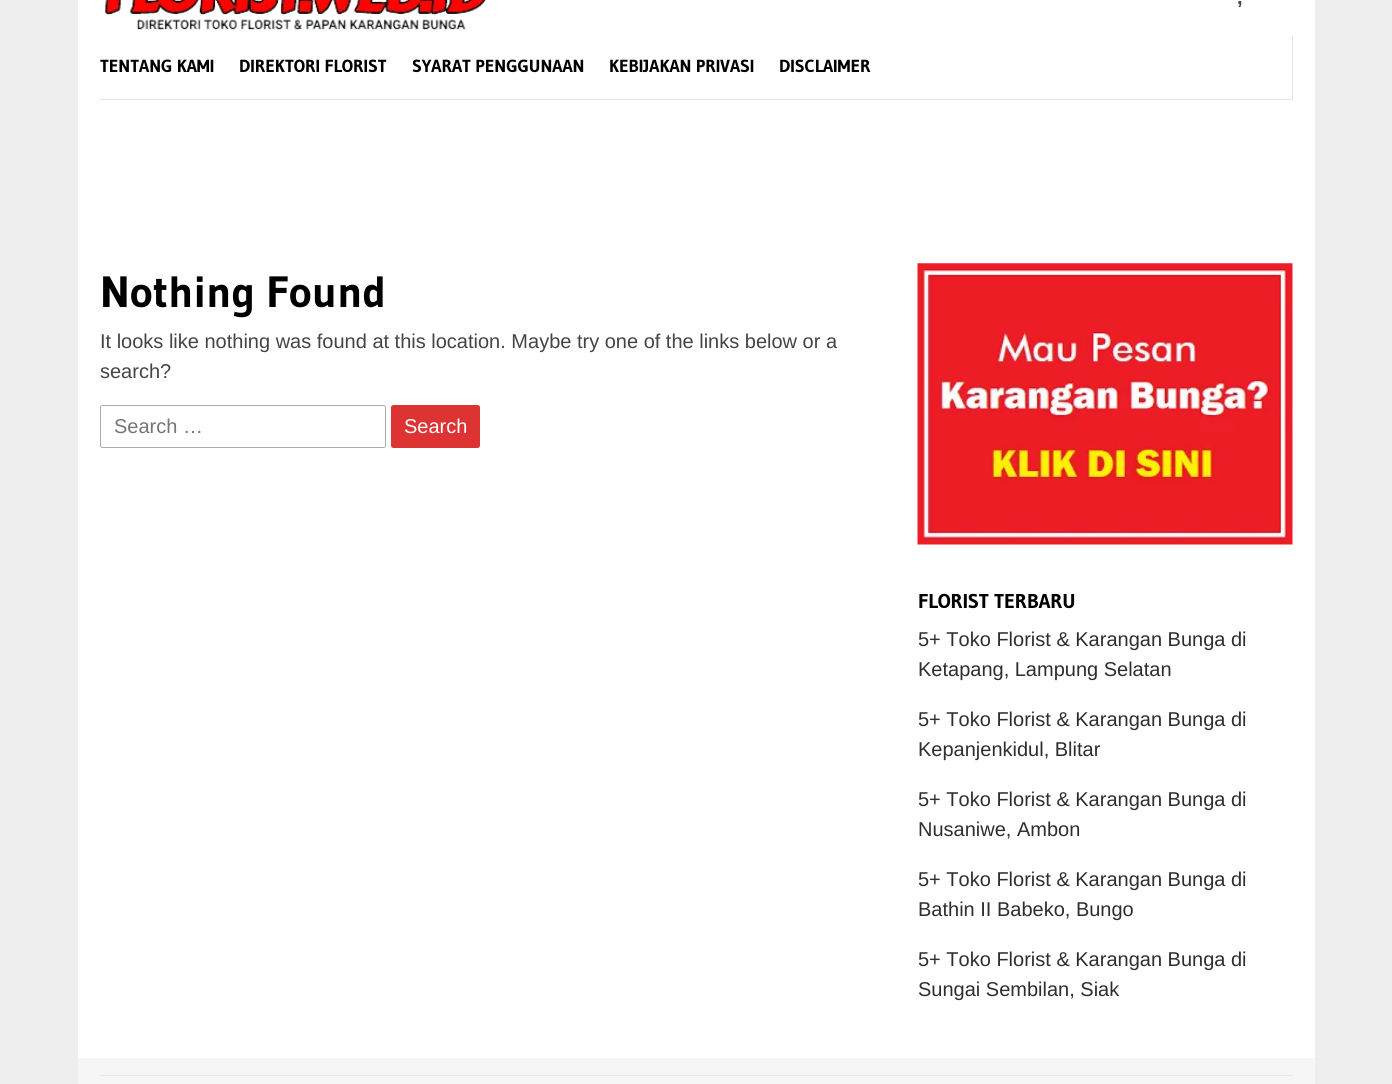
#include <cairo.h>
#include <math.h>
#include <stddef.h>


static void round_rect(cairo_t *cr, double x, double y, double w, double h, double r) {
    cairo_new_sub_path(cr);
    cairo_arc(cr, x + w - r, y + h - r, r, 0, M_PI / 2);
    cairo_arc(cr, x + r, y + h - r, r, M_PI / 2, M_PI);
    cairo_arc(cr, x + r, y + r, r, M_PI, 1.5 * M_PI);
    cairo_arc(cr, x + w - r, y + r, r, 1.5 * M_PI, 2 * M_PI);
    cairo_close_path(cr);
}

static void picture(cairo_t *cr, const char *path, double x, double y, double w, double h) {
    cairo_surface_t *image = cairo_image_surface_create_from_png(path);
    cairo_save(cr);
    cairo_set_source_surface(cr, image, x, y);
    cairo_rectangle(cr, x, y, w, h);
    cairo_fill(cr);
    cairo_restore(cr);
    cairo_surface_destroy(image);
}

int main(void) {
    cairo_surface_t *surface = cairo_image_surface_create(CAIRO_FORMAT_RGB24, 1392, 1084);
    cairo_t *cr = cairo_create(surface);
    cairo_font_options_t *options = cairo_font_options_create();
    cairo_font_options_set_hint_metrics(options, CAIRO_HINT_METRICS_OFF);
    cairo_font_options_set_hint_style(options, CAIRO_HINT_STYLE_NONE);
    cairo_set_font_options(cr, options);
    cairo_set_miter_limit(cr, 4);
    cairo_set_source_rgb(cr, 0.933, 0.933, 0.933);
    cairo_paint(cr);
    cairo_set_source_rgb(cr, 1, 1, 1);
    cairo_rectangle(cr, 78, 0, 1237, 35);
    cairo_fill(cr);
    picture(cr, "img1.png", 104, 0, 382, 30);
    cairo_select_font_face(cr, "Liberation Sans", CAIRO_FONT_SLANT_NORMAL, CAIRO_FONT_WEIGHT_BOLD);
    cairo_set_font_size(cr, 20);
    cairo_set_source_rgb(cr, 0.267, 0.267, 0.267);
    cairo_move_to(cr, 1237, 4);
    cairo_show_text(cr, ",");
    cairo_set_source_rgb(cr, 1, 1, 1);
    cairo_rectangle(cr, 78, 35, 1237, 1023);
    cairo_fill(cr);
    cairo_set_source_rgb(cr, 0.902, 0.902, 0.902);
    cairo_new_path(cr);
    cairo_move_to(cr, 100, 99);
    cairo_line_to(cr, 100, 100);
    cairo_line_to(cr, 1293, 100);
    cairo_line_to(cr, 1293, 36);
    cairo_line_to(cr, 1292, 36);
    cairo_line_to(cr, 1292, 99);
    cairo_close_path(cr);
    cairo_fill(cr);
    cairo_select_font_face(cr, "Gudea", CAIRO_FONT_SLANT_NORMAL, CAIRO_FONT_WEIGHT_BOLD);
    cairo_set_font_size(cr, 17.5);
    cairo_set_source_rgb(cr, 0, 0, 0);
    cairo_move_to(cr, 100, 72);
    cairo_show_text(cr, "TENTANG KAMI");
    cairo_move_to(cr, 239, 72);
    cairo_show_text(cr, "DIREKTORI FLORIST");
    cairo_move_to(cr, 412, 72);
    cairo_show_text(cr, "SYARAT PENGGUNAAN");
    cairo_move_to(cr, 609, 72);
    cairo_show_text(cr, "KEBIJAKAN PRIVASI");
    cairo_move_to(cr, 779, 72);
    cairo_show_text(cr, "DISCLAIMER");
    cairo_set_font_size(cr, 43.75);
    cairo_move_to(cr, 100, 307);
    cairo_show_text(cr, "Nothing Found");
    cairo_select_font_face(cr, "Liberation Sans", CAIRO_FONT_SLANT_NORMAL, CAIRO_FONT_WEIGHT_NORMAL);
    cairo_set_font_size(cr, 20);
    cairo_set_source_rgb(cr, 0.267, 0.267, 0.267);
    cairo_move_to(cr, 100, 348);
    cairo_show_text(cr, "It looks like nothing was found at this location. Maybe try one of the links below or a");
    cairo_move_to(cr, 100, 378);
    cairo_show_text(cr, "search?");
    round_rect(cr, 100.5, 405.5, 285, 42, 2);
    cairo_set_source_rgb(cr, 0.678, 0.678, 0.678);
    cairo_set_line_width(cr, 1);
    cairo_stroke(cr);
    cairo_set_source_rgb(cr, 0.459, 0.459, 0.459);
    cairo_move_to(cr, 114, 433);
    cairo_show_text(cr, "Search …");
    cairo_set_source_rgb(cr, 0.867, 0.2, 0.2);
    round_rect(cr, 391, 405, 89, 43, 2.5);
    cairo_fill(cr);
    cairo_set_source_rgb(cr, 1, 1, 1);
    cairo_move_to(cr, 404, 433);
    cairo_show_text(cr, "Search");
    picture(cr, "img2.png", 917, 263, 376, 282);
    cairo_select_font_face(cr, "Gudea", CAIRO_FONT_SLANT_NORMAL, CAIRO_FONT_WEIGHT_BOLD);
    cairo_set_source_rgb(cr, 0, 0, 0);
    cairo_move_to(cr, 918, 608);
    cairo_show_text(cr, "FLORIST TERBARU");
    cairo_select_font_face(cr, "Liberation Sans", CAIRO_FONT_SLANT_NORMAL, CAIRO_FONT_WEIGHT_NORMAL);
    cairo_set_source_rgb(cr, 0.18, 0.18, 0.18);
    cairo_move_to(cr, 918, 646);
    cairo_show_text(cr, "5+ Toko Florist & Karangan Bunga di");
    cairo_move_to(cr, 918, 676);
    cairo_show_text(cr, "Ketapang, Lampung Selatan");
    cairo_move_to(cr, 918, 726);
    cairo_show_text(cr, "5+ Toko Florist & Karangan Bunga di");
    cairo_move_to(cr, 918, 756);
    cairo_show_text(cr, "Kepanjenkidul, Blitar");
    cairo_move_to(cr, 918, 806);
    cairo_show_text(cr, "5+ Toko Florist & Karangan Bunga di");
    cairo_move_to(cr, 918, 836);
    cairo_show_text(cr, "Nusaniwe, Ambon");
    cairo_move_to(cr, 918, 886);
    cairo_show_text(cr, "5+ Toko Florist & Karangan Bunga di");
    cairo_move_to(cr, 918, 916);
    cairo_show_text(cr, "Bathin II Babeko, Bungo");
    cairo_move_to(cr, 918, 966);
    cairo_show_text(cr, "5+ Toko Florist & Karangan Bunga di");
    cairo_move_to(cr, 918, 996);
    cairo_show_text(cr, "Sungai Sembilan, Siak");
    cairo_set_source_rgb(cr, 0.961, 0.961, 0.961);
    cairo_rectangle(cr, 78, 1058, 1237, 26);
    cairo_fill(cr);
    cairo_set_source_rgb(cr, 0.914, 0.914, 0.914);
    cairo_rectangle(cr, 100, 1075, 1193, 1);
    cairo_fill(cr);
    cairo_surface_write_to_png(surface, "page.png");
    cairo_font_options_destroy(options);
    cairo_destroy(cr);
    cairo_surface_destroy(surface);
    return 0;
}
